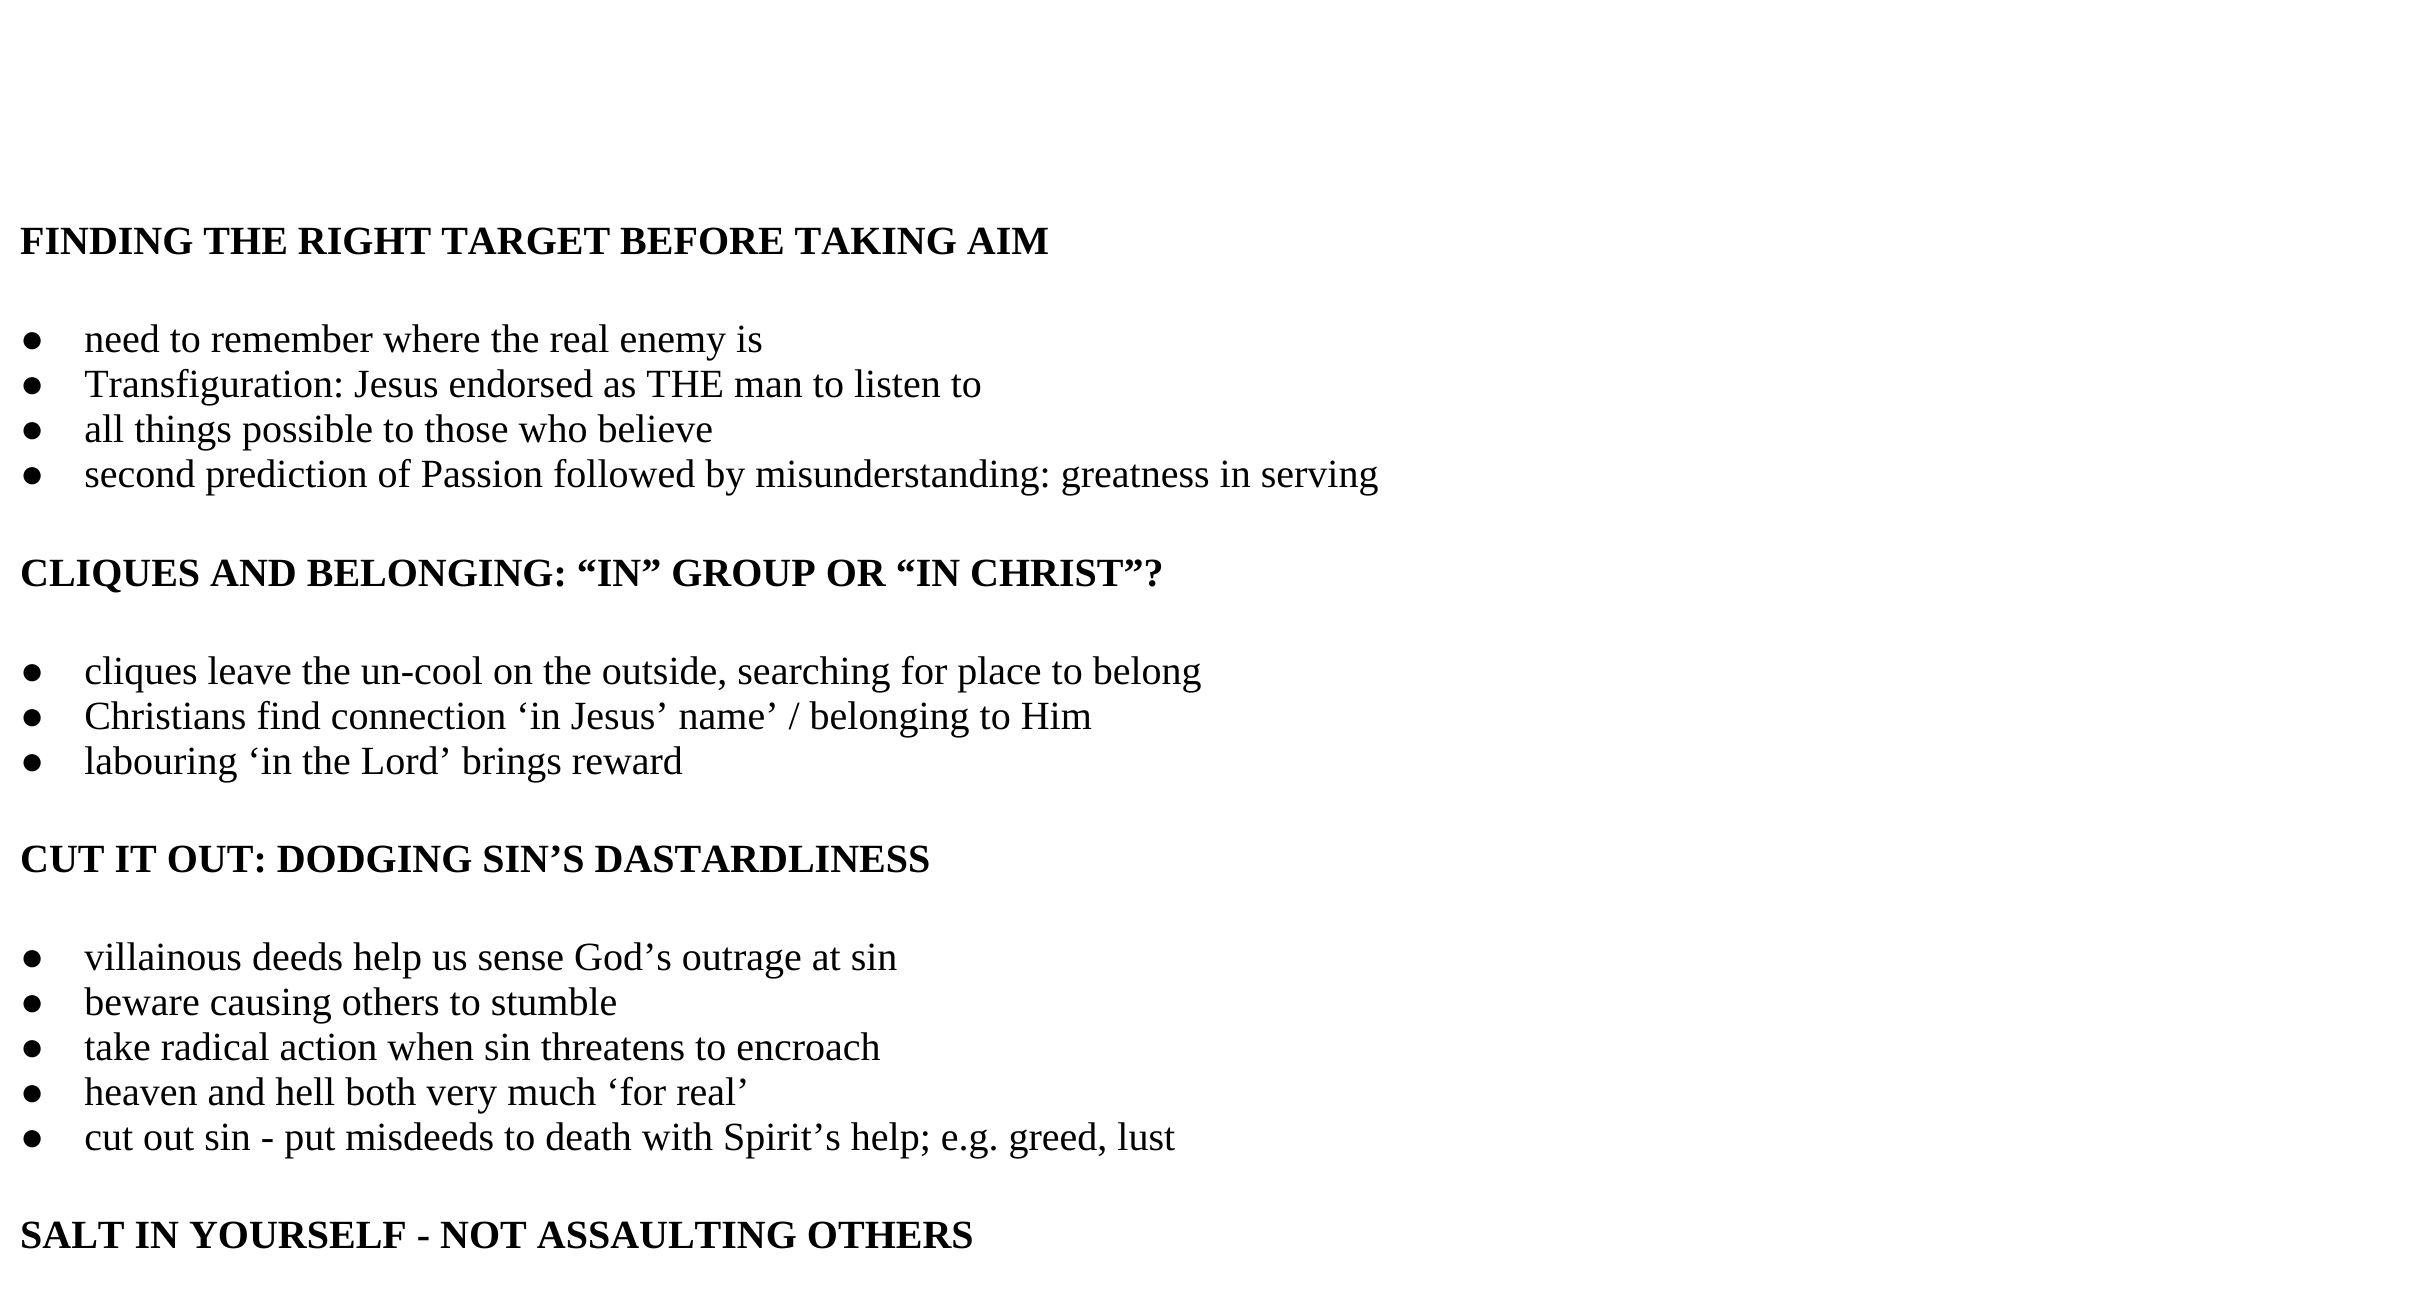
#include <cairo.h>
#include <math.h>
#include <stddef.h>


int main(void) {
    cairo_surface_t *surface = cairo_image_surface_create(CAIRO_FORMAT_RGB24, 2424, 1308);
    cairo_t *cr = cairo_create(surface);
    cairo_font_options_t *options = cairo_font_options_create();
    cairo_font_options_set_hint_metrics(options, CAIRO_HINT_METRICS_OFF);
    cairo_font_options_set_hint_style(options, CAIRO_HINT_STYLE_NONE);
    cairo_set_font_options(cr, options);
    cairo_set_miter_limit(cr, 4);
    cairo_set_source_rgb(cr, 1, 1, 1);
    cairo_paint(cr);
    cairo_select_font_face(cr, "Liberation Serif", CAIRO_FONT_SLANT_NORMAL, CAIRO_FONT_WEIGHT_BOLD);
    cairo_set_font_size(cr, 40);
    cairo_set_source_rgb(cr, 0, 0, 0);
    cairo_move_to(cr, 20, 254);
    cairo_show_text(cr, "FINDING THE RIGHT TARGET BEFORE TAKING AIM");
    cairo_select_font_face(cr, "Liberation Serif", CAIRO_FONT_SLANT_NORMAL, CAIRO_FONT_WEIGHT_NORMAL);
    cairo_move_to(cr, 20, 352);
    cairo_show_text(cr, "●    need to remember where the real enemy is");
    cairo_move_to(cr, 20, 397);
    cairo_show_text(cr, "●    Transfiguration: Jesus endorsed as THE man to listen to");
    cairo_move_to(cr, 20, 442);
    cairo_show_text(cr, "●    all things possible to those who believe");
    cairo_move_to(cr, 20, 487);
    cairo_show_text(cr, "●    second prediction of Passion followed by misunderstanding: greatness in serving");
    cairo_select_font_face(cr, "Liberation Serif", CAIRO_FONT_SLANT_NORMAL, CAIRO_FONT_WEIGHT_BOLD);
    cairo_move_to(cr, 20, 586);
    cairo_show_text(cr, "CLIQUES AND BELONGING: “IN” GROUP OR “IN CHRIST”?");
    cairo_select_font_face(cr, "Liberation Serif", CAIRO_FONT_SLANT_NORMAL, CAIRO_FONT_WEIGHT_NORMAL);
    cairo_move_to(cr, 20, 684);
    cairo_show_text(cr, "●    cliques leave the un-cool on the outside, searching for place to belong");
    cairo_move_to(cr, 20, 729);
    cairo_show_text(cr, "●    Christians find connection ‘in Jesus’ name’ / belonging to Him");
    cairo_move_to(cr, 20, 774);
    cairo_show_text(cr, "●    labouring ‘in the Lord’ brings reward");
    cairo_select_font_face(cr, "Liberation Serif", CAIRO_FONT_SLANT_NORMAL, CAIRO_FONT_WEIGHT_BOLD);
    cairo_move_to(cr, 20, 872);
    cairo_show_text(cr, "CUT IT OUT: DODGING SIN’S DASTARDLINESS");
    cairo_select_font_face(cr, "Liberation Serif", CAIRO_FONT_SLANT_NORMAL, CAIRO_FONT_WEIGHT_NORMAL);
    cairo_move_to(cr, 20, 970);
    cairo_show_text(cr, "●    villainous deeds help us sense God’s outrage at sin");
    cairo_move_to(cr, 20, 1015);
    cairo_show_text(cr, "●    beware causing others to stumble");
    cairo_move_to(cr, 20, 1060);
    cairo_show_text(cr, "●    take radical action when sin threatens to encroach");
    cairo_move_to(cr, 20, 1105);
    cairo_show_text(cr, "●    heaven and hell both very much ‘for real’");
    cairo_move_to(cr, 20, 1150);
    cairo_show_text(cr, "●    cut out sin - put misdeeds to death with Spirit’s help; e.g. greed, lust");
    cairo_select_font_face(cr, "Liberation Serif", CAIRO_FONT_SLANT_NORMAL, CAIRO_FONT_WEIGHT_BOLD);
    cairo_move_to(cr, 20, 1248);
    cairo_show_text(cr, "SALT IN YOURSELF - NOT ASSAULTING OTHERS");
    cairo_surface_write_to_png(surface, "page.png");
    cairo_font_options_destroy(options);
    cairo_destroy(cr);
    cairo_surface_destroy(surface);
    return 0;
}
